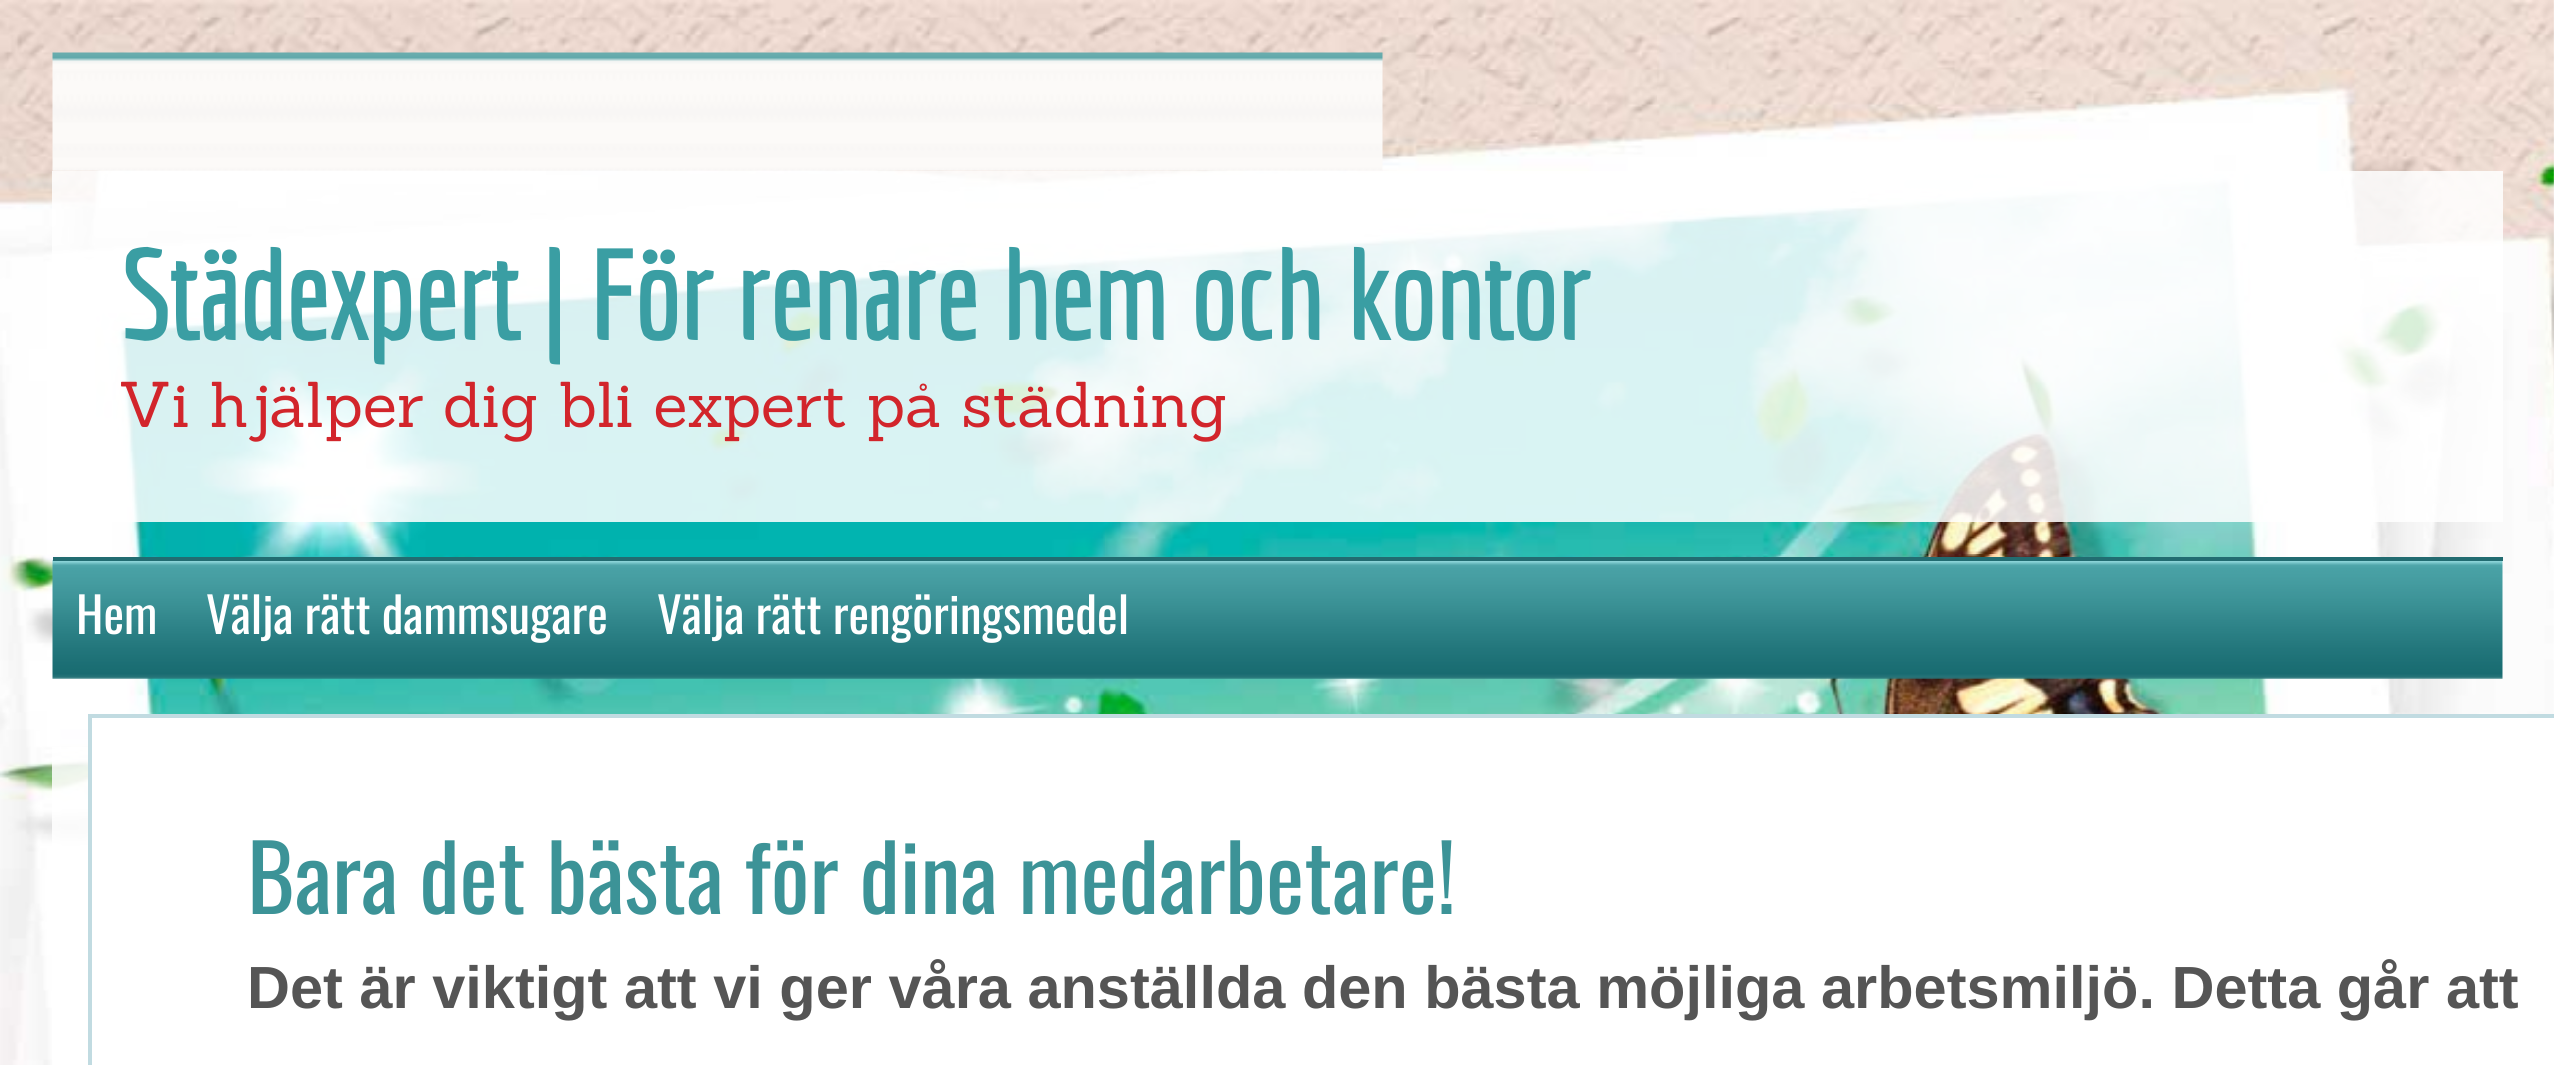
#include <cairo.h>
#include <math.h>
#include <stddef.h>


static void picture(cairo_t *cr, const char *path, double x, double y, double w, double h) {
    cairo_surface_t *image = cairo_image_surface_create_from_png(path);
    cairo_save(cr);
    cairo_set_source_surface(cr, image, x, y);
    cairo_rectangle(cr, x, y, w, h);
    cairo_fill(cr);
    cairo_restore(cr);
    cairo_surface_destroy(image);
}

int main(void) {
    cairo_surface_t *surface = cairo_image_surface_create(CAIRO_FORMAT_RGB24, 2554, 1065);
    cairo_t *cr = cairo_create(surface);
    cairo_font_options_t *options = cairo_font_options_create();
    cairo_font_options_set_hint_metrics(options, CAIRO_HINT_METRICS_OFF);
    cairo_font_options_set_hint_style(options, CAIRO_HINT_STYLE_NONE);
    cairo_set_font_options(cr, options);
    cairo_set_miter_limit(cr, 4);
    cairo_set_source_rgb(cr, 1, 1, 1);
    cairo_paint(cr);
    picture(cr, "img1.png", 0, 0, 2554, 1065);
    picture(cr, "img2.png", 52, 52, 1331, 119);
    cairo_set_source_rgba(cr, 1, 1, 1, 0.85);
    cairo_rectangle(cr, 52, 171, 2451, 351);
    cairo_fill(cr);
    cairo_select_font_face(cr, "Economica", CAIRO_FONT_SLANT_NORMAL, CAIRO_FONT_WEIGHT_BOLD);
    cairo_set_font_size(cr, 122.5);
    cairo_set_source_rgb(cr, 0.227, 0.62, 0.639);
    cairo_move_to(cr, 121, 340);
    cairo_show_text(cr, "Städexpert | För renare hem och kontor");
    cairo_select_font_face(cr, "Sanchez", CAIRO_FONT_SLANT_NORMAL, CAIRO_FONT_WEIGHT_NORMAL);
    cairo_set_font_size(cr, 63);
    cairo_set_source_rgb(cr, 0.824, 0.145, 0.169);
    cairo_move_to(cr, 118, 427);
    cairo_show_text(cr, "Vi hjälper dig bli expert på städning");
    picture(cr, "img3.png", 52, 560, 2451, 119);
    cairo_set_source_rgb(cr, 0.133, 0.424, 0.443);
    cairo_rectangle(cr, 53, 557, 2450, 4);
    cairo_fill(cr);
    cairo_select_font_face(cr, "Oswald", CAIRO_FONT_SLANT_NORMAL, CAIRO_FONT_WEIGHT_NORMAL);
    cairo_set_font_size(cr, 49);
    cairo_set_source_rgb(cr, 1, 1, 1);
    cairo_move_to(cr, 76, 634);
    cairo_show_text(cr, "Hem");
    cairo_move_to(cr, 206, 634);
    cairo_show_text(cr, "Välja rätt dammsugare");
    cairo_move_to(cr, 657, 634);
    cairo_show_text(cr, "Välja rätt rengöringsmedel");
    cairo_set_source_rgba(cr, 1, 1, 1, 0.85);
    cairo_rectangle(cr, 52, 747, 36, 318);
    cairo_fill(cr);
    cairo_set_source_rgb(cr, 1, 1, 1);
    cairo_rectangle(cr, 90, 716, 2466, 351);
    cairo_fill_preserve(cr);
    cairo_set_source_rgb(cr, 0.757, 0.859, 0.882);
    cairo_set_line_width(cr, 4);
    cairo_stroke(cr);
    cairo_set_font_size(cr, 91);
    cairo_set_source_rgb(cr, 0.235, 0.576, 0.592);
    cairo_move_to(cr, 247, 914);
    cairo_show_text(cr, "Bara det bästa för dina medarbetare!");
    cairo_select_font_face(cr, "Liberation Sans", CAIRO_FONT_SLANT_NORMAL, CAIRO_FONT_WEIGHT_BOLD);
    cairo_set_font_size(cr, 59.5);
    cairo_set_source_rgb(cr, 0.333, 0.333, 0.333);
    cairo_move_to(cr, 247, 1008);
    cairo_show_text(cr, "Det är viktigt att vi ger våra anställda den bästa möjliga arbetsmiljö. Detta går att");
    cairo_surface_write_to_png(surface, "page.png");
    cairo_font_options_destroy(options);
    cairo_destroy(cr);
    cairo_surface_destroy(surface);
    return 0;
}
